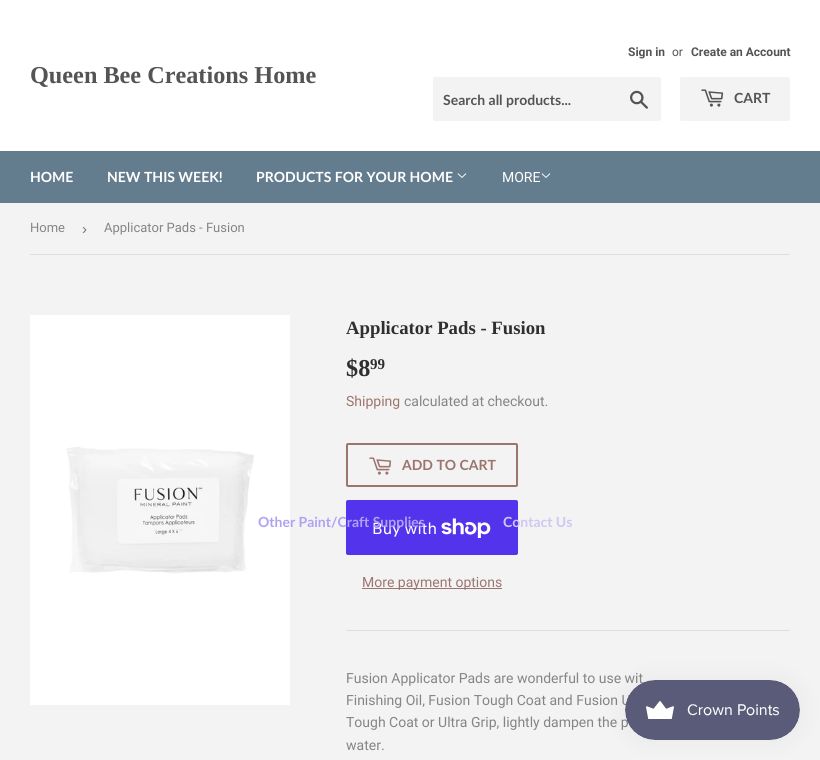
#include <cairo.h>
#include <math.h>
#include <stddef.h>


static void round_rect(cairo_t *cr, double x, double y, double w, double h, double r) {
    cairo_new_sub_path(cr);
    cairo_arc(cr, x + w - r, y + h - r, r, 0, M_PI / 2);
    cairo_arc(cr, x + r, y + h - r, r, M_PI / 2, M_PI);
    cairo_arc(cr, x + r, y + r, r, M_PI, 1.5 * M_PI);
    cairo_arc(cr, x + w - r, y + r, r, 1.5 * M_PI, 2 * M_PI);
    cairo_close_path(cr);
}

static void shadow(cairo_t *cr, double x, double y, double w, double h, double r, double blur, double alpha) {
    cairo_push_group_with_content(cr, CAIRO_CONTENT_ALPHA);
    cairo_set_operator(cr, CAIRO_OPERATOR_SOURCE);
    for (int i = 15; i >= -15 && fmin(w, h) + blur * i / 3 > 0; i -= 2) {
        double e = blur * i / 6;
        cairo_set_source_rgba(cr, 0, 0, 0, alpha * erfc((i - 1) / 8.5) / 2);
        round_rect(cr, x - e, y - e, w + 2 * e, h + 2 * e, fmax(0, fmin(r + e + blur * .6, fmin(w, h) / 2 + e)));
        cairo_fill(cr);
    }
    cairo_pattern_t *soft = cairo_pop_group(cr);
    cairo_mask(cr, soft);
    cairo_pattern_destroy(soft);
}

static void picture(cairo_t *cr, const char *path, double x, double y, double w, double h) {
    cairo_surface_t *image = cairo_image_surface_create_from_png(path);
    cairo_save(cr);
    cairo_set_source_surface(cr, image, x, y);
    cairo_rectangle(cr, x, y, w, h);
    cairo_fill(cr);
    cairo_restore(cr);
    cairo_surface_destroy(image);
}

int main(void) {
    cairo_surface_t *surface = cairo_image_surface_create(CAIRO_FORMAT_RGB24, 820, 760);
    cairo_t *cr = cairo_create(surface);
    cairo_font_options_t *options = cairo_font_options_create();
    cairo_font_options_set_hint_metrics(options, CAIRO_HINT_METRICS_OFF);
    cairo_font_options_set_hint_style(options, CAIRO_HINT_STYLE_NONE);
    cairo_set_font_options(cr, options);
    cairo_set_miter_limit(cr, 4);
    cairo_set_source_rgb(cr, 0.953, 0.953, 0.953);
    cairo_paint(cr);
    cairo_set_source_rgb(cr, 1, 1, 1);
    cairo_rectangle(cr, 0, 0, 820, 151);
    cairo_fill(cr);
    cairo_select_font_face(cr, "Liberation Serif", CAIRO_FONT_SLANT_NORMAL, CAIRO_FONT_WEIGHT_BOLD);
    cairo_set_font_size(cr, 24.25);
    cairo_set_source_rgb(cr, 0.329, 0.329, 0.329);
    cairo_move_to(cr, 30, 83);
    cairo_show_text(cr, "Queen Bee Creations Home");
    cairo_select_font_face(cr, "Roboto", CAIRO_FONT_SLANT_NORMAL, CAIRO_FONT_WEIGHT_BOLD);
    cairo_set_font_size(cr, 12);
    cairo_move_to(cr, 628, 56);
    cairo_show_text(cr, "Sign in");
    cairo_select_font_face(cr, "Roboto", CAIRO_FONT_SLANT_NORMAL, CAIRO_FONT_WEIGHT_NORMAL);
    cairo_move_to(cr, 672, 56);
    cairo_show_text(cr, "or");
    cairo_select_font_face(cr, "Roboto", CAIRO_FONT_SLANT_NORMAL, CAIRO_FONT_WEIGHT_BOLD);
    cairo_move_to(cr, 691, 56);
    cairo_show_text(cr, "Create an Account");
    cairo_set_source_rgb(cr, 0.953, 0.953, 0.953);
    round_rect(cr, 433, 77, 228, 44, 2);
    cairo_fill(cr);
    cairo_select_font_face(cr, "Lato", CAIRO_FONT_SLANT_NORMAL, CAIRO_FONT_WEIGHT_BOLD);
    cairo_set_font_size(cr, 14);
    cairo_set_source_rgb(cr, 0.329, 0.329, 0.329);
    cairo_move_to(cr, 443, 105);
    cairo_show_text(cr, "Search all products...");
    picture(cr, "img1.png", 630, 90, 18, 19);
    cairo_set_source_rgb(cr, 0.953, 0.953, 0.953);
    round_rect(cr, 680, 77, 110, 44, 2);
    cairo_fill(cr);
    picture(cr, "img2.png", 701, 89, 23, 18);
    cairo_set_source_rgb(cr, 0.329, 0.329, 0.329);
    cairo_move_to(cr, 734, 103);
    cairo_show_text(cr, "CART");
    cairo_set_source_rgb(cr, 0.392, 0.49, 0.557);
    cairo_rectangle(cr, 0, 151, 820, 52);
    cairo_fill(cr);
    cairo_set_source_rgb(cr, 1, 1, 1);
    cairo_move_to(cr, 30, 182);
    cairo_show_text(cr, "HOME");
    cairo_move_to(cr, 107, 182);
    cairo_show_text(cr, "NEW THIS WEEK!");
    cairo_move_to(cr, 256, 182);
    cairo_show_text(cr, "PRODUCTS FOR YOUR HOME");
    picture(cr, "img3.png", 457, 173, 10, 5);
    cairo_select_font_face(cr, "Roboto", CAIRO_FONT_SLANT_NORMAL, CAIRO_FONT_WEIGHT_NORMAL);
    cairo_move_to(cr, 502, 182);
    cairo_show_text(cr, "MORE");
    picture(cr, "img3.png", 541, 173, 10, 5);
    picture(cr, "img4.png", 30, 315, 260, 390);
    cairo_set_source_rgb(cr, 0.329, 0.2, 0.922);
    round_rect(cr, 346, 500, 172, 55, 2);
    cairo_fill(cr);
    cairo_select_font_face(cr, "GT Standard", CAIRO_FONT_SLANT_NORMAL, CAIRO_FONT_WEIGHT_NORMAL);
    cairo_set_font_size(cr, 16);
    cairo_set_source_rgb(cr, 1, 1, 1);
    cairo_move_to(cr, 372, 534);
    cairo_show_text(cr, "Buy with");
    cairo_select_font_face(cr, "Lato", CAIRO_FONT_SLANT_NORMAL, CAIRO_FONT_WEIGHT_BOLD);
    cairo_set_font_size(cr, 14);
    cairo_set_source_rgb(cr, 0.69, 0.635, 0.949);
    cairo_move_to(cr, 258, 527);
    cairo_show_text(cr, "Other Paint/Craft Supplies");
    cairo_set_source_rgb(cr, 0.812, 0.78, 0.945);
    cairo_move_to(cr, 503, 527);
    cairo_show_text(cr, "Contact Us");
    cairo_set_source_rgb(cr, 0.871, 0.871, 0.871);
    cairo_rectangle(cr, 30, 254, 760, 1);
    cairo_fill(cr);
    cairo_select_font_face(cr, "Roboto", CAIRO_FONT_SLANT_NORMAL, CAIRO_FONT_WEIGHT_NORMAL);
    cairo_set_font_size(cr, 13);
    cairo_set_source_rgb(cr, 0.522, 0.522, 0.522);
    cairo_move_to(cr, 30, 232);
    cairo_show_text(cr, "Home");
    cairo_select_font_face(cr, "Liberation Sans", CAIRO_FONT_SLANT_NORMAL, CAIRO_FONT_WEIGHT_NORMAL);
    cairo_set_font_size(cr, 15);
    cairo_set_source_rgb(cr, 0.463, 0.463, 0.463);
    cairo_move_to(cr, 82, 234);
    cairo_show_text(cr, "›");
    cairo_select_font_face(cr, "Roboto", CAIRO_FONT_SLANT_NORMAL, CAIRO_FONT_WEIGHT_NORMAL);
    cairo_set_font_size(cr, 13);
    cairo_set_source_rgb(cr, 0.522, 0.522, 0.522);
    cairo_move_to(cr, 104, 232);
    cairo_show_text(cr, "Applicator Pads - Fusion");
    cairo_select_font_face(cr, "Liberation Serif", CAIRO_FONT_SLANT_NORMAL, CAIRO_FONT_WEIGHT_BOLD);
    cairo_set_font_size(cr, 18.75);
    cairo_set_source_rgb(cr, 0.184, 0.184, 0.184);
    cairo_move_to(cr, 346, 334);
    cairo_show_text(cr, "Applicator Pads - Fusion");
    cairo_set_font_size(cr, 24.25);
    cairo_move_to(cr, 346, 376);
    cairo_show_text(cr, "$8");
    cairo_set_font_size(cr, 15);
    cairo_move_to(cr, 370, 369);
    cairo_show_text(cr, "99");
    cairo_select_font_face(cr, "Roboto", CAIRO_FONT_SLANT_NORMAL, CAIRO_FONT_WEIGHT_NORMAL);
    cairo_set_font_size(cr, 14);
    cairo_set_source_rgb(cr, 0.612, 0.459, 0.435);
    cairo_move_to(cr, 346, 406);
    cairo_show_text(cr, "Shipping");
    cairo_set_source_rgb(cr, 0.522, 0.522, 0.522);
    cairo_move_to(cr, 404, 406);
    cairo_show_text(cr, "calculated at checkout.");
    round_rect(cr, 347, 444, 170, 42, 1);
    cairo_set_source_rgb(cr, 0.612, 0.459, 0.435);
    cairo_stroke(cr);
    picture(cr, "img5.png", 369, 457, 23, 18);
    cairo_select_font_face(cr, "Lato", CAIRO_FONT_SLANT_NORMAL, CAIRO_FONT_WEIGHT_BOLD);
    cairo_move_to(cr, 402, 470);
    cairo_show_text(cr, "ADD TO CART");
    picture(cr, "img6.png", 441, 518, 50, 20);
    cairo_rectangle(cr, 362, 588, 140, 1);
    cairo_fill(cr);
    cairo_select_font_face(cr, "Roboto", CAIRO_FONT_SLANT_NORMAL, CAIRO_FONT_WEIGHT_NORMAL);
    cairo_move_to(cr, 362, 587);
    cairo_show_text(cr, "More payment options");
    cairo_set_source_rgb(cr, 0.871, 0.871, 0.871);
    cairo_rectangle(cr, 346, 630, 444, 1);
    cairo_fill(cr);
    cairo_set_source_rgb(cr, 0.522, 0.522, 0.522);
    cairo_move_to(cr, 346, 683);
    cairo_show_text(cr, "Fusion Applicator Pads are wonderful to use wit");
    cairo_move_to(cr, 346, 705);
    cairo_show_text(cr, "Finishing Oil, Fusion Tough Coat and Fusion U");
    cairo_move_to(cr, 346, 727);
    cairo_show_text(cr, "Tough Coat or Ultra Grip, lightly dampen the p");
    cairo_move_to(cr, 346, 750);
    cairo_show_text(cr, "water.");
    cairo_set_source_rgb(cr, 0, 0, 0);
    shadow(cr, 625, 680, 175, 60, 30, 12.5, 0.05);
    picture(cr, "img7.png", 625, 680, 175, 60);
    cairo_surface_write_to_png(surface, "page.png");
    cairo_font_options_destroy(options);
    cairo_destroy(cr);
    cairo_surface_destroy(surface);
    return 0;
}
